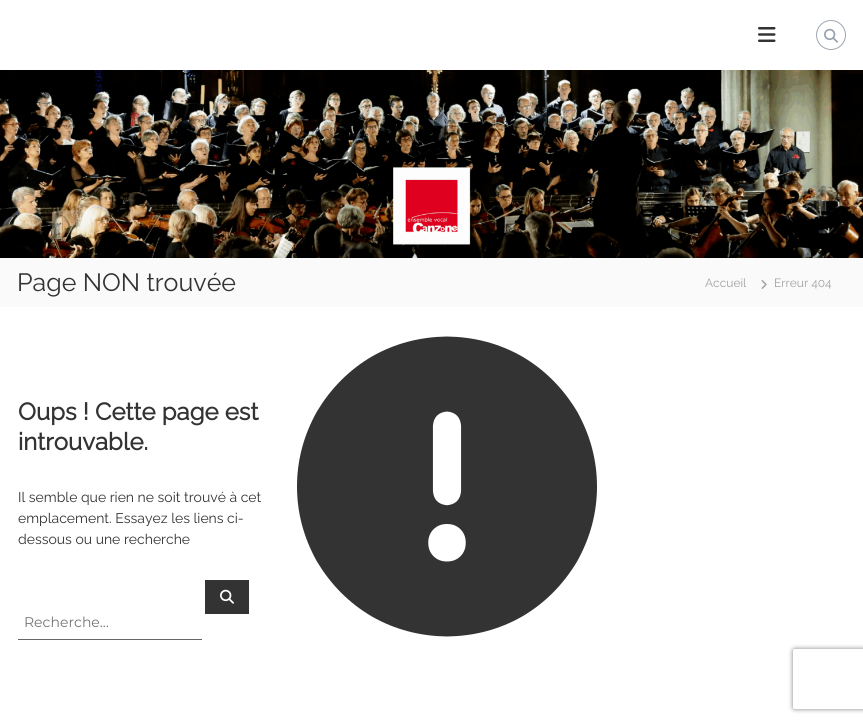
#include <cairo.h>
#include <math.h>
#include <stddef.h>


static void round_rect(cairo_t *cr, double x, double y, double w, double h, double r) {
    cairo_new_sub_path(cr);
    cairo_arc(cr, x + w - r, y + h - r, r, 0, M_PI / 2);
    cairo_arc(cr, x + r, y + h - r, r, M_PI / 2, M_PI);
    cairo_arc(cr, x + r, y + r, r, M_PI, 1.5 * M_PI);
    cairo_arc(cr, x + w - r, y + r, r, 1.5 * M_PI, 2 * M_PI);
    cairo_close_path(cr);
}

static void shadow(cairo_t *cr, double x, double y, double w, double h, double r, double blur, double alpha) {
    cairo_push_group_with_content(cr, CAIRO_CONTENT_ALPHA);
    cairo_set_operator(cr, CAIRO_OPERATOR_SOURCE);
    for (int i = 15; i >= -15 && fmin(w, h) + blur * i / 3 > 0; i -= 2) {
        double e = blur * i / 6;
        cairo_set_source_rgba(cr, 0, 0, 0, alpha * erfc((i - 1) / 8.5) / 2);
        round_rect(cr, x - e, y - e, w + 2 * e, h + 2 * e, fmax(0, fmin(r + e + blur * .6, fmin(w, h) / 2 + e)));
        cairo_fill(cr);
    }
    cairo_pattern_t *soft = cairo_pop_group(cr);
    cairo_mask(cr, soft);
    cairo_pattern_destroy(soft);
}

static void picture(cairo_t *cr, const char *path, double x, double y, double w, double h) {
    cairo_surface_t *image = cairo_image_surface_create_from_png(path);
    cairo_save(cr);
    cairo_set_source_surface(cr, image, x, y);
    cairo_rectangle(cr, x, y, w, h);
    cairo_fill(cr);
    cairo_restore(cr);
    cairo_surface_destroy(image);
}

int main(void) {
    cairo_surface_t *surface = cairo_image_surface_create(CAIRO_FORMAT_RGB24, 863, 723);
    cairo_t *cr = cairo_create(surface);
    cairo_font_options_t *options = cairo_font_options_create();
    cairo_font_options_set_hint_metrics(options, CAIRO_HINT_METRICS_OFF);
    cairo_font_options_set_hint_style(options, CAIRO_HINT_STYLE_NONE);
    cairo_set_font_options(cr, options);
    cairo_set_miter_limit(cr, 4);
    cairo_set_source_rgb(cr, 1, 1, 1);
    cairo_paint(cr);
    picture(cr, "img1.png", 758, 27, 18, 15);
    cairo_arc(cr, 831, 35, 14.5, 0, 2 * M_PI);
    cairo_set_source_rgb(cr, 0.612, 0.651, 0.698);
    cairo_set_line_width(cr, 1);
    cairo_stroke(cr);
    picture(cr, "img2.png", 824, 28, 14, 15);
    picture(cr, "img3.png", 0, 70, 863, 188);
    cairo_set_source_rgb(cr, 0.98, 0.98, 0.98);
    cairo_rectangle(cr, 0, 258, 863, 49);
    cairo_fill(cr);
    cairo_select_font_face(cr, "Raleway", CAIRO_FONT_SLANT_NORMAL, CAIRO_FONT_WEIGHT_NORMAL);
    cairo_set_font_size(cr, 25);
    cairo_set_source_rgb(cr, 0.2, 0.2, 0.2);
    cairo_move_to(cr, 17, 291);
    cairo_show_text(cr, "Page NON trouvée");
    cairo_set_font_size(cr, 12);
    cairo_set_source_rgb(cr, 0.631, 0.631, 0.631);
    cairo_move_to(cr, 705, 287);
    cairo_show_text(cr, "Accueil");
    picture(cr, "img4.png", 761, 280, 6, 9);
    cairo_move_to(cr, 774, 287);
    cairo_show_text(cr, "Erreur 404");
    cairo_select_font_face(cr, "Raleway", CAIRO_FONT_SLANT_NORMAL, CAIRO_FONT_WEIGHT_BOLD);
    cairo_set_font_size(cr, 24);
    cairo_set_source_rgb(cr, 0.2, 0.2, 0.2);
    cairo_move_to(cr, 18, 420);
    cairo_show_text(cr, "Oups ! Cette page est");
    cairo_move_to(cr, 18, 450);
    cairo_show_text(cr, "introuvable.");
    cairo_select_font_face(cr, "Raleway", CAIRO_FONT_SLANT_NORMAL, CAIRO_FONT_WEIGHT_NORMAL);
    cairo_set_font_size(cr, 14);
    cairo_move_to(cr, 18, 502);
    cairo_show_text(cr, "Il semble que rien ne soit trouvé à cet");
    cairo_move_to(cr, 18, 523);
    cairo_show_text(cr, "emplacement. Essayez les liens ci-");
    cairo_move_to(cr, 18, 544);
    cairo_show_text(cr, "dessous ou une recherche");
    cairo_rectangle(cr, 205, 580, 44, 34);
    cairo_fill(cr);
    picture(cr, "img5.png", 220, 589, 14, 15);
    cairo_set_source_rgb(cr, 0.4, 0.4, 0.4);
    cairo_rectangle(cr, 18, 639, 184, 1);
    cairo_fill(cr);
    cairo_select_font_face(cr, "Montserrat", CAIRO_FONT_SLANT_NORMAL, CAIRO_FONT_WEIGHT_NORMAL);
    cairo_set_source_rgb(cr, 0.459, 0.459, 0.459);
    cairo_move_to(cr, 24, 627);
    cairo_show_text(cr, "Recherche…");
    picture(cr, "img6.png", 297, 336, 300, 301);
    cairo_save(cr);
    cairo_set_fill_rule(cr, CAIRO_FILL_RULE_EVEN_ODD);
    cairo_new_path(cr);
    cairo_move_to(cr, 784, 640);
    cairo_line_to(cr, 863, 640);
    cairo_line_to(cr, 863, 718);
    cairo_line_to(cr, 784, 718);
    cairo_close_path(cr);
    cairo_move_to(cr, 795, 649);
    cairo_line_to(cr, 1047, 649);
    cairo_curve_to(cr, 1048, 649, 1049, 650, 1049, 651);
    cairo_line_to(cr, 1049, 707);
    cairo_curve_to(cr, 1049, 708, 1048, 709, 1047, 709);
    cairo_line_to(cr, 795, 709);
    cairo_curve_to(cr, 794, 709, 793, 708, 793, 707);
    cairo_line_to(cr, 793, 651);
    cairo_curve_to(cr, 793, 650, 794, 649, 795, 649);
    cairo_close_path(cr);
    cairo_clip(cr);
    cairo_set_source_rgb(cr, 0.502, 0.502, 0.502);
    shadow(cr, 793, 649, 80, 60, 2, 2.5, 1);
    cairo_restore(cr);
    cairo_surface_write_to_png(surface, "page.png");
    cairo_font_options_destroy(options);
    cairo_destroy(cr);
    cairo_surface_destroy(surface);
    return 0;
}
